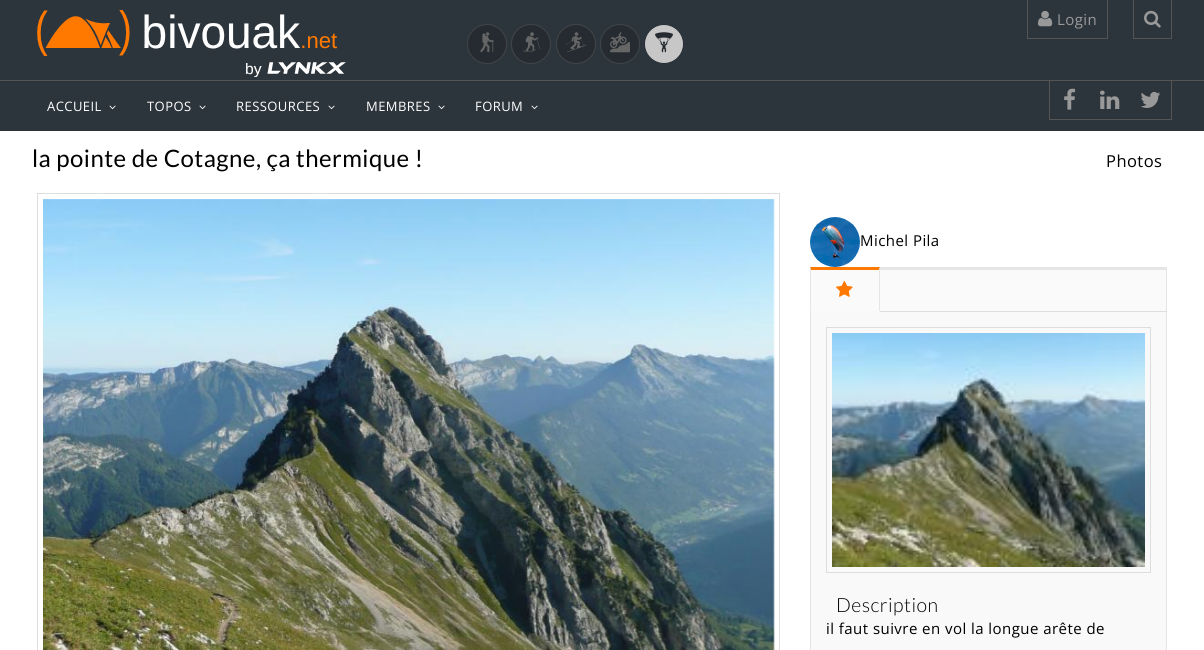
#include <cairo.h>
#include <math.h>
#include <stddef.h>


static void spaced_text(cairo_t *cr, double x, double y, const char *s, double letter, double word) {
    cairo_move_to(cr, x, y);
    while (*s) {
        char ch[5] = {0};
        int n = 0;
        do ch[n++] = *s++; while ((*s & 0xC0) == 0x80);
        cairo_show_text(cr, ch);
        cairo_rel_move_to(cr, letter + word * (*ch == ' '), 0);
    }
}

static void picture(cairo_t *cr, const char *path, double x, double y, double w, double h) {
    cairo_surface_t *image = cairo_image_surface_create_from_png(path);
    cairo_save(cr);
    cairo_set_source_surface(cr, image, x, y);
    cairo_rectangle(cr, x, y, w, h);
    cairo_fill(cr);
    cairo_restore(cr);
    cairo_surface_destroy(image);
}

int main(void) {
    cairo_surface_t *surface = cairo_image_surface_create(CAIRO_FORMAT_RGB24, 1204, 650);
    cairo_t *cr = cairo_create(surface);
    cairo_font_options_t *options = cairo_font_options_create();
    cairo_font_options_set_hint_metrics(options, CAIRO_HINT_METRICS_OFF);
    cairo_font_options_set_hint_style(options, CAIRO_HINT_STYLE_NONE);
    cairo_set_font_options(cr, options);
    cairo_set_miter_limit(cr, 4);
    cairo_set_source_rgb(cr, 1, 1, 1);
    cairo_paint(cr);
    cairo_set_source_rgb(cr, 0.176, 0.208, 0.235);
    cairo_rectangle(cr, 0, 0, 1204, 80);
    cairo_fill(cr);
    picture(cr, "img1.png", 37, 10, 300, 46);
    picture(cr, "img2.png", 246, 62, 100, 15);
    cairo_set_source_rgb(cr, 0.145, 0.169, 0.192);
    cairo_arc(cr, 487, 44, 19.5, 0, 2 * M_PI);
    cairo_fill_preserve(cr);
    cairo_set_source_rgb(cr, 0.255, 0.271, 0.282);
    cairo_set_line_width(cr, 1);
    cairo_stroke(cr);
    picture(cr, "img3.png", 480, 32, 14, 21);
    cairo_set_source_rgb(cr, 0.145, 0.169, 0.192);
    cairo_arc(cr, 531, 44, 19.5, 0, 2 * M_PI);
    cairo_fill_preserve(cr);
    cairo_set_source_rgb(cr, 0.255, 0.271, 0.282);
    cairo_stroke(cr);
    picture(cr, "img4.png", 523, 32, 17, 21);
    cairo_set_source_rgb(cr, 0.145, 0.169, 0.192);
    cairo_arc(cr, 576, 44, 19.5, 0, 2 * M_PI);
    cairo_fill_preserve(cr);
    cairo_set_source_rgb(cr, 0.255, 0.271, 0.282);
    cairo_stroke(cr);
    picture(cr, "img5.png", 566, 32, 20, 21);
    cairo_set_source_rgb(cr, 0.145, 0.169, 0.192);
    cairo_arc(cr, 620, 44, 19.5, 0, 2 * M_PI);
    cairo_fill_preserve(cr);
    cairo_set_source_rgb(cr, 0.255, 0.271, 0.282);
    cairo_stroke(cr);
    picture(cr, "img6.png", 610, 32, 20, 21);
    cairo_set_source_rgb(cr, 0.78, 0.78, 0.78);
    cairo_arc(cr, 664, 44, 19.5, 0, 2 * M_PI);
    cairo_fill_preserve(cr);
    cairo_set_source_rgb(cr, 0.145, 0.169, 0.192);
    cairo_stroke(cr);
    picture(cr, "img7.png", 655, 32, 18, 21);
    cairo_set_source_rgb(cr, 0.333, 0.333, 0.333);
    cairo_rectangle(cr, 1107, 0, 1, 39);
    cairo_fill(cr);
    cairo_rectangle(cr, 1027, 38, 81, 1);
    cairo_fill(cr);
    cairo_rectangle(cr, 1027, 0, 1, 39);
    cairo_fill(cr);
    picture(cr, "img8.png", 1038, 10, 15, 17);
    cairo_select_font_face(cr, "Open Sans", CAIRO_FONT_SLANT_NORMAL, CAIRO_FONT_WEIGHT_NORMAL);
    cairo_set_font_size(cr, 15);
    cairo_set_source_rgb(cr, 0.6, 0.6, 0.6);
    spaced_text(cr, 1057, 25, "Login", 0.45, 0);
    cairo_set_source_rgb(cr, 0.333, 0.333, 0.333);
    cairo_rectangle(cr, 1171, 0, 1, 39);
    cairo_fill(cr);
    cairo_rectangle(cr, 1133, 38, 39, 1);
    cairo_fill(cr);
    cairo_rectangle(cr, 1133, 0, 1, 39);
    cairo_fill(cr);
    picture(cr, "img9.png", 1144, 10, 17, 18);
    cairo_set_source_rgb(cr, 0.176, 0.208, 0.235);
    cairo_rectangle(cr, 0, 81, 1204, 50);
    cairo_fill(cr);
    cairo_set_source_rgb(cr, 0.333, 0.333, 0.333);
    cairo_rectangle(cr, 0, 80, 1204, 1);
    cairo_fill(cr);
    cairo_set_font_size(cr, 13);
    cairo_set_source_rgb(cr, 1, 1, 1);
    spaced_text(cr, 47, 111, "ACCUEIL", 0.45, 0);
    picture(cr, "img10.png", 109, 105, 7, 5);
    spaced_text(cr, 147, 111, "TOPOS", 0.45, 0);
    picture(cr, "img10.png", 199, 105, 7, 5);
    spaced_text(cr, 236, 111, "RESSOURCES", 0.45, 0);
    picture(cr, "img10.png", 328, 105, 7, 5);
    spaced_text(cr, 366, 111, "MEMBRES", 0.45, 0);
    picture(cr, "img10.png", 438, 105, 7, 5);
    spaced_text(cr, 475, 111, "FORUM", 0.45, 0);
    picture(cr, "img10.png", 531, 105, 7, 5);
    cairo_set_source_rgb(cr, 0.333, 0.333, 0.333);
    cairo_rectangle(cr, 1171, 81, 1, 39);
    cairo_fill(cr);
    cairo_rectangle(cr, 1049, 119, 123, 1);
    cairo_fill(cr);
    cairo_rectangle(cr, 1049, 81, 1, 39);
    cairo_fill(cr);
    picture(cr, "img11.png", 1064, 88, 12, 22);
    picture(cr, "img12.png", 1100, 90, 20, 19);
    picture(cr, "img13.png", 1140, 91, 20, 17);
    cairo_select_font_face(cr, "Lato", CAIRO_FONT_SLANT_NORMAL, CAIRO_FONT_WEIGHT_NORMAL);
    cairo_set_font_size(cr, 24);
    cairo_set_source_rgb(cr, 0, 0, 0);
    spaced_text(cr, 32, 167, "la pointe de Cotagne, ça thermique !", 0.45, 0);
    cairo_select_font_face(cr, "Open Sans", CAIRO_FONT_SLANT_NORMAL, CAIRO_FONT_WEIGHT_NORMAL);
    cairo_set_font_size(cr, 16.5);
    spaced_text(cr, 1106, 167, "Photos", 0.45, 0);
    cairo_rectangle(cr, 37.5, 193.5, 742, 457);
    cairo_set_source_rgb(cr, 0.867, 0.867, 0.867);
    cairo_stroke(cr);
    picture(cr, "img14.png", 43, 199, 732, 451);
    picture(cr, "img15.png", 810, 217, 50, 50);
    cairo_set_font_size(cr, 15);
    cairo_set_source_rgb(cr, 0, 0, 0);
    spaced_text(cr, 860, 246, "Michel Pila", 0.45, 0);
    cairo_set_source_rgb(cr, 0.98, 0.98, 0.98);
    cairo_rectangle(cr, 811, 270, 355, 41);
    cairo_fill(cr);
    cairo_set_source_rgb(cr, 0.898, 0.898, 0.898);
    cairo_rectangle(cr, 810, 267, 357, 3);
    cairo_fill(cr);
    cairo_rectangle(cr, 1166, 267, 1, 383);
    cairo_fill(cr);
    cairo_set_source_rgb(cr, 0.867, 0.867, 0.867);
    cairo_rectangle(cr, 880, 311, 287, 1);
    cairo_fill(cr);
    cairo_set_source_rgb(cr, 1, 0.475, 0);
    cairo_new_path(cr);
    cairo_move_to(cr, 810, 267);
    cairo_line_to(cr, 880, 267);
    cairo_line_to(cr, 879, 270);
    cairo_line_to(cr, 811, 270);
    cairo_close_path(cr);
    cairo_fill(cr);
    cairo_set_source_rgb(cr, 0.898, 0.898, 0.898);
    cairo_new_path(cr);
    cairo_move_to(cr, 880, 267);
    cairo_line_to(cr, 880, 312);
    cairo_line_to(cr, 879, 311);
    cairo_line_to(cr, 879, 270);
    cairo_close_path(cr);
    cairo_fill(cr);
    cairo_set_source_rgb(cr, 0.976, 0.976, 0.976);
    cairo_rectangle(cr, 810, 311, 70, 1);
    cairo_fill(cr);
    cairo_set_source_rgb(cr, 0.898, 0.898, 0.898);
    cairo_new_path(cr);
    cairo_move_to(cr, 810, 312);
    cairo_line_to(cr, 810, 267);
    cairo_line_to(cr, 811, 270);
    cairo_line_to(cr, 811, 311);
    cairo_close_path(cr);
    cairo_fill(cr);
    picture(cr, "img16.png", 836, 280, 17, 17);
    cairo_set_source_rgb(cr, 0.976, 0.976, 0.976);
    cairo_rectangle(cr, 811, 312, 355, 338);
    cairo_fill(cr);
    cairo_set_source_rgb(cr, 0.898, 0.898, 0.898);
    cairo_rectangle(cr, 810, 312, 1, 338);
    cairo_fill(cr);
    cairo_rectangle(cr, 826.5, 327.5, 324, 245);
    cairo_set_source_rgb(cr, 0.867, 0.867, 0.867);
    cairo_stroke(cr);
    picture(cr, "img17.png", 832, 333, 313, 234);
    cairo_select_font_face(cr, "Lato Light", CAIRO_FONT_SLANT_NORMAL, CAIRO_FONT_WEIGHT_NORMAL);
    cairo_set_font_size(cr, 19.5);
    cairo_set_source_rgb(cr, 0, 0, 0);
    spaced_text(cr, 836, 612, "Description", 0.45, 0);
    cairo_select_font_face(cr, "Open Sans", CAIRO_FONT_SLANT_NORMAL, CAIRO_FONT_WEIGHT_NORMAL);
    cairo_set_font_size(cr, 15);
    spaced_text(cr, 826, 634, "il faut suivre en vol la longue arête de", 0.45, 0);
    cairo_surface_write_to_png(surface, "page.png");
    cairo_font_options_destroy(options);
    cairo_destroy(cr);
    cairo_surface_destroy(surface);
    return 0;
}
